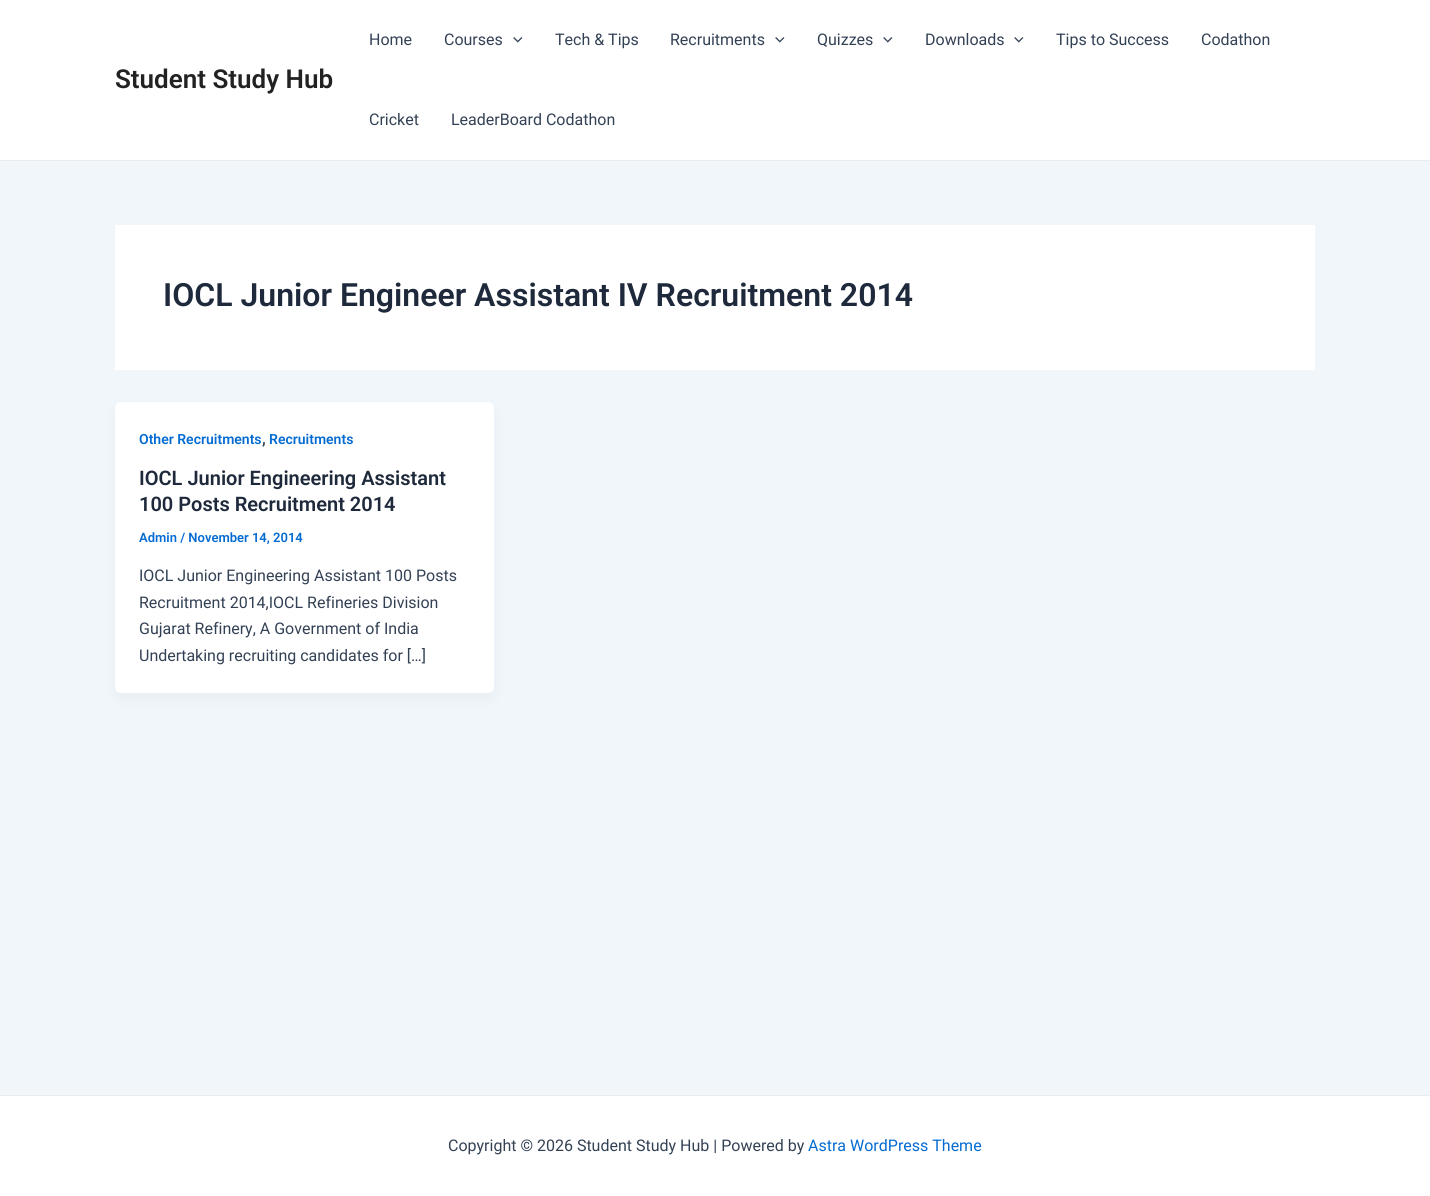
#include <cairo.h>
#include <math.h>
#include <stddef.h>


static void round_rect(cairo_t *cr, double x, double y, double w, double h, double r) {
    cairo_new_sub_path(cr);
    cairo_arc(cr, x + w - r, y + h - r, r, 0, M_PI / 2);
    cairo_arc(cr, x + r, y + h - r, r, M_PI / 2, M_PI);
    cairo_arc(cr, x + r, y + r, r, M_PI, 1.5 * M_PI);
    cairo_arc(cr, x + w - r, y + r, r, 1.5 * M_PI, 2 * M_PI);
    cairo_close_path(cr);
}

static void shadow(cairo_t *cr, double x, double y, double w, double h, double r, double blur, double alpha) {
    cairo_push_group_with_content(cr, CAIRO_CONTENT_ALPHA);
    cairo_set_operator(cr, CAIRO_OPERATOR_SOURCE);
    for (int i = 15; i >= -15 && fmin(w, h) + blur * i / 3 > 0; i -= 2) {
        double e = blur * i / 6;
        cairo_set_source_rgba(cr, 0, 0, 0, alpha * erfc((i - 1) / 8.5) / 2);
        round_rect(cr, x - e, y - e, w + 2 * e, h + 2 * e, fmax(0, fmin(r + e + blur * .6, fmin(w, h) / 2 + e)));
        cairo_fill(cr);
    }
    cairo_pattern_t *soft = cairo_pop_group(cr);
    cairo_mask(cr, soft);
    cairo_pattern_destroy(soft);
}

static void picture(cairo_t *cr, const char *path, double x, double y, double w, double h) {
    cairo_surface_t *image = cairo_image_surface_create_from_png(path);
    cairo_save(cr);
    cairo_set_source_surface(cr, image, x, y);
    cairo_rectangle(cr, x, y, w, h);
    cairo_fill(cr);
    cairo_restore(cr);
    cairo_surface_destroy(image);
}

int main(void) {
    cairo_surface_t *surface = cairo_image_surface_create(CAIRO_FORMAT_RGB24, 1430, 1196);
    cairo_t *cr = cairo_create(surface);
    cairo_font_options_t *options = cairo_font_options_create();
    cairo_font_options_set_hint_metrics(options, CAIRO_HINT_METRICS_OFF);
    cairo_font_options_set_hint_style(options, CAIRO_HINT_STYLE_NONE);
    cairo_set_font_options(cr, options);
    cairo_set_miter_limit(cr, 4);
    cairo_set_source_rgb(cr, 0.941, 0.961, 0.98);
    cairo_paint(cr);
    cairo_set_source_rgb(cr, 1, 1, 1);
    cairo_rectangle(cr, 0, 0, 1430, 160);
    cairo_fill(cr);
    cairo_set_source_rgb(cr, 0.918, 0.918, 0.918);
    cairo_rectangle(cr, 0, 160, 1430, 1);
    cairo_fill(cr);
    cairo_select_font_face(cr, "Roboto SemiBold", CAIRO_FONT_SLANT_NORMAL, CAIRO_FONT_WEIGHT_NORMAL);
    cairo_set_font_size(cr, 26);
    cairo_set_source_rgb(cr, 0.133, 0.133, 0.133);
    cairo_move_to(cr, 115, 88);
    cairo_show_text(cr, "Student Study Hub");
    cairo_select_font_face(cr, "Roboto", CAIRO_FONT_SLANT_NORMAL, CAIRO_FONT_WEIGHT_NORMAL);
    cairo_set_font_size(cr, 16);
    cairo_set_source_rgb(cr, 0.2, 0.255, 0.333);
    cairo_move_to(cr, 369, 45);
    cairo_show_text(cr, "Home");
    cairo_move_to(cr, 444, 45);
    cairo_show_text(cr, "Courses");
    picture(cr, "img1.png", 513, 37, 10, 6);
    cairo_move_to(cr, 555, 45);
    cairo_show_text(cr, "Tech & Tips");
    cairo_move_to(cr, 670, 45);
    cairo_show_text(cr, "Recruitments");
    picture(cr, "img1.png", 775, 37, 10, 6);
    cairo_move_to(cr, 817, 45);
    cairo_show_text(cr, "Quizzes");
    picture(cr, "img1.png", 883, 37, 10, 6);
    cairo_move_to(cr, 925, 45);
    cairo_show_text(cr, "Downloads");
    picture(cr, "img1.png", 1014, 37, 10, 6);
    cairo_move_to(cr, 1056, 45);
    cairo_show_text(cr, "Tips to Success");
    cairo_move_to(cr, 1201, 45);
    cairo_show_text(cr, "Codathon");
    cairo_move_to(cr, 369, 125);
    cairo_show_text(cr, "Cricket");
    cairo_move_to(cr, 451, 125);
    cairo_show_text(cr, "LeaderBoard Codathon");
    cairo_set_source_rgb(cr, 1, 1, 1);
    cairo_rectangle(cr, 115, 225, 1200, 145);
    cairo_fill(cr);
    cairo_select_font_face(cr, "Roboto SemiBold", CAIRO_FONT_SLANT_NORMAL, CAIRO_FONT_WEIGHT_NORMAL);
    cairo_set_font_size(cr, 32);
    cairo_set_source_rgb(cr, 0.118, 0.161, 0.231);
    cairo_move_to(cr, 163, 306);
    cairo_show_text(cr, "IOCL Junior Engineer Assistant IV Recruitment 2014");
    cairo_set_source_rgb(cr, 0.063, 0.094, 0.157);
    shadow(cr, 117, 410, 375, 287, 4, 7.5, 0.05);
    cairo_set_source_rgb(cr, 1, 1, 1);
    round_rect(cr, 115, 402, 379, 291, 6);
    cairo_fill(cr);
    cairo_set_font_size(cr, 14);
    cairo_set_source_rgb(cr, 0.016, 0.42, 0.824);
    cairo_move_to(cr, 139, 444);
    cairo_show_text(cr, "Other Recruitments");
    cairo_set_font_size(cr, 16);
    cairo_set_source_rgb(cr, 0.2, 0.255, 0.333);
    cairo_move_to(cr, 262, 444);
    cairo_show_text(cr, ",");
    cairo_set_font_size(cr, 14);
    cairo_set_source_rgb(cr, 0.016, 0.42, 0.824);
    cairo_move_to(cr, 269, 444);
    cairo_show_text(cr, "Recruitments");
    cairo_set_font_size(cr, 20);
    cairo_set_source_rgb(cr, 0.118, 0.161, 0.231);
    cairo_move_to(cr, 139, 485);
    cairo_show_text(cr, "IOCL Junior Engineering Assistant");
    cairo_move_to(cr, 139, 511);
    cairo_show_text(cr, "100 Posts Recruitment 2014");
    cairo_set_font_size(cr, 13);
    cairo_set_source_rgb(cr, 0.016, 0.42, 0.824);
    cairo_move_to(cr, 139, 542);
    cairo_show_text(cr, "Admin / November 14, 2014");
    cairo_select_font_face(cr, "Roboto", CAIRO_FONT_SLANT_NORMAL, CAIRO_FONT_WEIGHT_NORMAL);
    cairo_set_font_size(cr, 16);
    cairo_set_source_rgb(cr, 0.2, 0.255, 0.333);
    cairo_move_to(cr, 139, 581);
    cairo_show_text(cr, "IOCL Junior Engineering Assistant 100 Posts");
    cairo_move_to(cr, 139, 608);
    cairo_show_text(cr, "Recruitment 2014,IOCL Refineries Division");
    cairo_move_to(cr, 139, 634);
    cairo_show_text(cr, "Gujarat Refinery, A Government of India");
    cairo_move_to(cr, 139, 661);
    cairo_show_text(cr, "Undertaking recruiting candidates for […]");
    cairo_set_source_rgb(cr, 1, 1, 1);
    cairo_rectangle(cr, 0, 1096, 1430, 100);
    cairo_fill(cr);
    cairo_set_source_rgb(cr, 0.918, 0.918, 0.918);
    cairo_rectangle(cr, 0, 1095, 1430, 1);
    cairo_fill(cr);
    cairo_set_source_rgb(cr, 0.2, 0.255, 0.333);
    cairo_move_to(cr, 448, 1151);
    cairo_show_text(cr, "Copyright © 2026 Student Study Hub | Powered by");
    cairo_set_source_rgb(cr, 0.016, 0.42, 0.824);
    cairo_move_to(cr, 808, 1151);
    cairo_show_text(cr, "Astra WordPress Theme");
    cairo_surface_write_to_png(surface, "page.png");
    cairo_font_options_destroy(options);
    cairo_destroy(cr);
    cairo_surface_destroy(surface);
    return 0;
}
